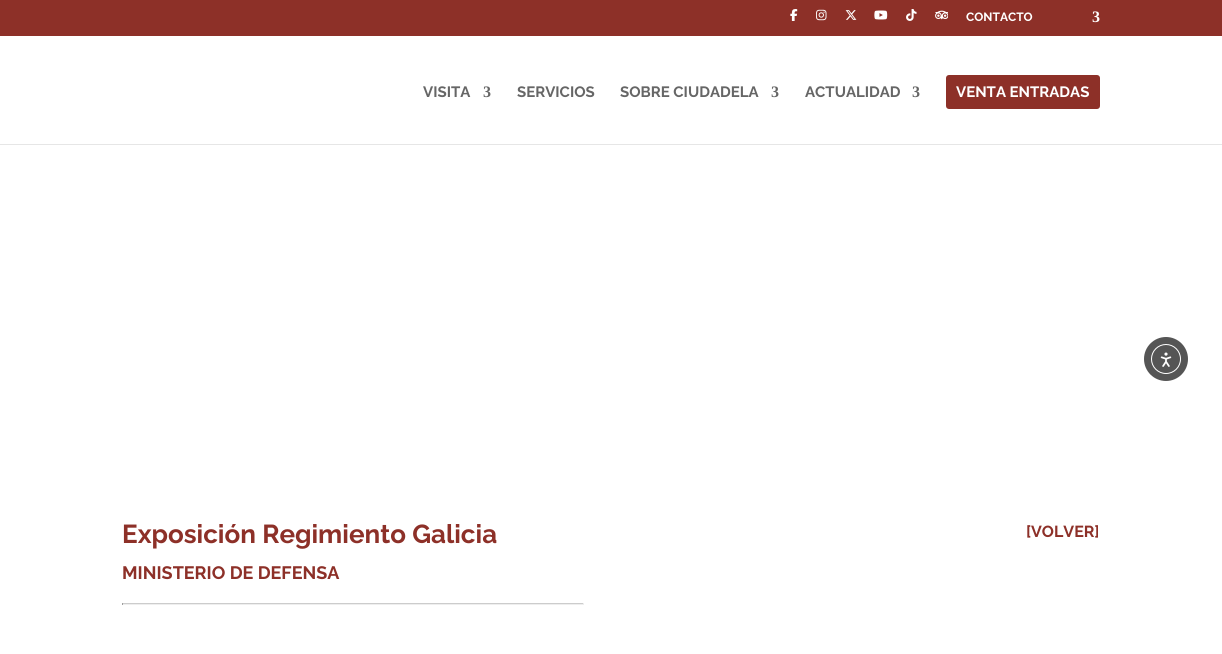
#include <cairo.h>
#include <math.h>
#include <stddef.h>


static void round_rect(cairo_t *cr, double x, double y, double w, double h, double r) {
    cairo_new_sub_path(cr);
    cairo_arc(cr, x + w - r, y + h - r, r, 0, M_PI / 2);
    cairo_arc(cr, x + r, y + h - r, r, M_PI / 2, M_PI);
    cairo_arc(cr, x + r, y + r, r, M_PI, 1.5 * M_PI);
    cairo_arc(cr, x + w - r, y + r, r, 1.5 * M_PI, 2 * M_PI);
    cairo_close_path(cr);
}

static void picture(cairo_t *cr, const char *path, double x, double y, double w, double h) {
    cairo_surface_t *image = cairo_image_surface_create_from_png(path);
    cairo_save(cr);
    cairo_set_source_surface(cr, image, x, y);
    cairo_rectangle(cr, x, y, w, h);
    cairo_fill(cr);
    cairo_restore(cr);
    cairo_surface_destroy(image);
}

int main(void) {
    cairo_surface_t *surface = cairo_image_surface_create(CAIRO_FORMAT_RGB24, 1222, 654);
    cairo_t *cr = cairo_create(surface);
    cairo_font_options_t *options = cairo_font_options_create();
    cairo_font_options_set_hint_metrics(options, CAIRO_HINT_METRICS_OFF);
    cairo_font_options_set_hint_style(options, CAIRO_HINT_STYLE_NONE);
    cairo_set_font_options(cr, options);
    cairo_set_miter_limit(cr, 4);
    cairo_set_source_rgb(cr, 1, 1, 1);
    cairo_paint(cr);
    cairo_set_source_rgb(cr, 0.553, 0.188, 0.157);
    cairo_rectangle(cr, 0, 0, 1222, 36);
    cairo_fill(cr);
    picture(cr, "img1.png", 790, 9, 8, 12);
    picture(cr, "img2.png", 816, 9, 11, 12);
    picture(cr, "img3.png", 845, 10, 12, 10);
    picture(cr, "img4.png", 874, 10, 14, 10);
    picture(cr, "img5.png", 906, 9, 11, 12);
    picture(cr, "img6.png", 935, 10, 13, 10);
    cairo_select_font_face(cr, "Raleway Thin", CAIRO_FONT_SLANT_NORMAL, CAIRO_FONT_WEIGHT_NORMAL);
    cairo_set_font_size(cr, 12);
    cairo_set_source_rgb(cr, 1, 1, 1);
    cairo_move_to(cr, 966, 21);
    cairo_show_text(cr, "CONTACTO");
    cairo_select_font_face(cr, "Liberation Serif", CAIRO_FONT_SLANT_NORMAL, CAIRO_FONT_WEIGHT_BOLD);
    cairo_set_font_size(cr, 16);
    cairo_move_to(cr, 1092, 22);
    cairo_show_text(cr, "3");
    cairo_set_source_rgb(cr, 0.902, 0.902, 0.902);
    cairo_rectangle(cr, 0, 144, 1222, 1);
    cairo_fill(cr);
    cairo_select_font_face(cr, "Raleway Thin", CAIRO_FONT_SLANT_NORMAL, CAIRO_FONT_WEIGHT_NORMAL);
    cairo_set_font_size(cr, 15);
    cairo_set_source_rgb(cr, 0.4, 0.4, 0.4);
    cairo_move_to(cr, 423, 97);
    cairo_show_text(cr, "VISITA");
    cairo_select_font_face(cr, "Liberation Serif", CAIRO_FONT_SLANT_NORMAL, CAIRO_FONT_WEIGHT_BOLD);
    cairo_set_font_size(cr, 16);
    cairo_move_to(cr, 483, 97);
    cairo_show_text(cr, "3");
    cairo_select_font_face(cr, "Raleway Thin", CAIRO_FONT_SLANT_NORMAL, CAIRO_FONT_WEIGHT_NORMAL);
    cairo_set_font_size(cr, 15);
    cairo_move_to(cr, 517, 97);
    cairo_show_text(cr, "SERVICIOS");
    cairo_move_to(cr, 620, 97);
    cairo_show_text(cr, "SOBRE CIUDADELA");
    cairo_select_font_face(cr, "Liberation Serif", CAIRO_FONT_SLANT_NORMAL, CAIRO_FONT_WEIGHT_BOLD);
    cairo_set_font_size(cr, 16);
    cairo_move_to(cr, 771, 97);
    cairo_show_text(cr, "3");
    cairo_select_font_face(cr, "Raleway Thin", CAIRO_FONT_SLANT_NORMAL, CAIRO_FONT_WEIGHT_NORMAL);
    cairo_set_font_size(cr, 15);
    cairo_move_to(cr, 805, 97);
    cairo_show_text(cr, "ACTUALIDAD");
    cairo_select_font_face(cr, "Liberation Serif", CAIRO_FONT_SLANT_NORMAL, CAIRO_FONT_WEIGHT_BOLD);
    cairo_set_font_size(cr, 16);
    cairo_move_to(cr, 912, 97);
    cairo_show_text(cr, "3");
    cairo_set_source_rgb(cr, 0.553, 0.188, 0.157);
    round_rect(cr, 946, 75, 154, 34, 3);
    cairo_fill(cr);
    cairo_select_font_face(cr, "Raleway Thin", CAIRO_FONT_SLANT_NORMAL, CAIRO_FONT_WEIGHT_NORMAL);
    cairo_set_font_size(cr, 15);
    cairo_set_source_rgb(cr, 1, 1, 1);
    cairo_move_to(cr, 956, 97);
    cairo_show_text(cr, "VENTA ENTRADAS");
    cairo_set_font_size(cr, 26);
    cairo_set_source_rgb(cr, 0.553, 0.188, 0.157);
    cairo_move_to(cr, 122, 543);
    cairo_show_text(cr, "Exposición Regimiento Galicia");
    cairo_set_font_size(cr, 18);
    cairo_move_to(cr, 122, 579);
    cairo_show_text(cr, "MINISTERIO DE DEFENSA");
    cairo_set_source_rgb(cr, 0.8, 0.8, 0.8);
    cairo_rectangle(cr, 122, 603, 462, 1);
    cairo_fill(cr);
    cairo_set_source_rgb(cr, 0.933, 0.933, 0.933);
    cairo_rectangle(cr, 583, 603, 1, 2);
    cairo_fill(cr);
    cairo_rectangle(cr, 122, 604, 462, 1);
    cairo_fill(cr);
    cairo_set_source_rgb(cr, 0.624, 0.624, 0.624);
    cairo_rectangle(cr, 122, 603, 1, 2);
    cairo_fill(cr);
    cairo_set_font_size(cr, 16);
    cairo_set_source_rgb(cr, 0.553, 0.188, 0.157);
    cairo_move_to(cr, 1026, 537);
    cairo_show_text(cr, "[VOLVER]");
    cairo_set_source_rgb(cr, 0.333, 0.333, 0.333);
    cairo_new_path(cr);
    cairo_arc(cr, 1166, 359, 22, 0, 2 * M_PI);
    cairo_fill(cr);
    cairo_arc(cr, 1166, 359, 14.5, 0, 2 * M_PI);
    cairo_set_source_rgb(cr, 1, 1, 1);
    cairo_set_line_width(cr, 1);
    cairo_stroke(cr);
    picture(cr, "img7.png", 1160, 352, 12, 15);
    cairo_surface_write_to_png(surface, "page.png");
    cairo_font_options_destroy(options);
    cairo_destroy(cr);
    cairo_surface_destroy(surface);
    return 0;
}
